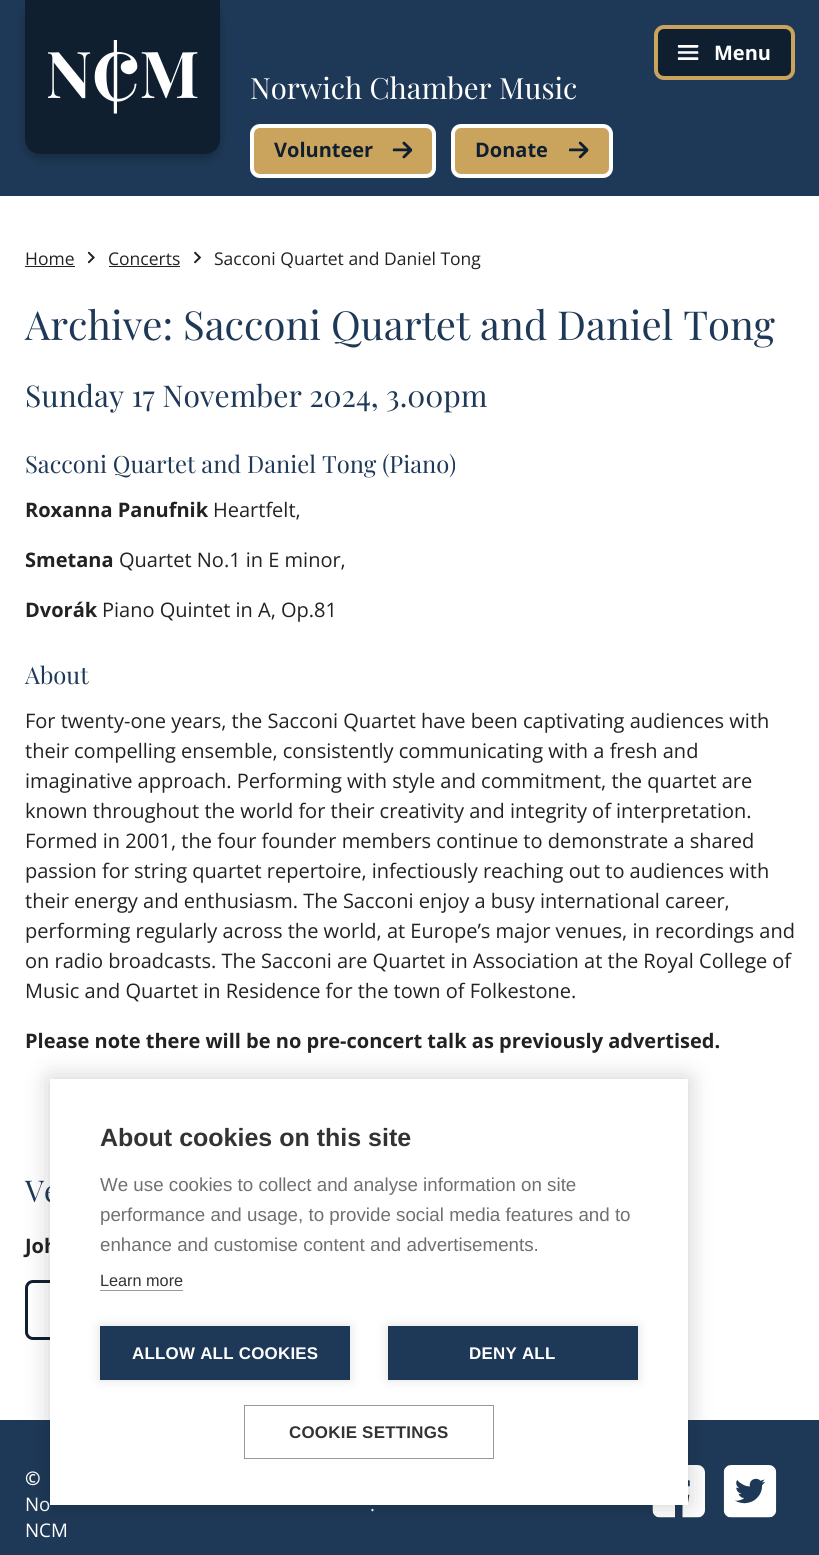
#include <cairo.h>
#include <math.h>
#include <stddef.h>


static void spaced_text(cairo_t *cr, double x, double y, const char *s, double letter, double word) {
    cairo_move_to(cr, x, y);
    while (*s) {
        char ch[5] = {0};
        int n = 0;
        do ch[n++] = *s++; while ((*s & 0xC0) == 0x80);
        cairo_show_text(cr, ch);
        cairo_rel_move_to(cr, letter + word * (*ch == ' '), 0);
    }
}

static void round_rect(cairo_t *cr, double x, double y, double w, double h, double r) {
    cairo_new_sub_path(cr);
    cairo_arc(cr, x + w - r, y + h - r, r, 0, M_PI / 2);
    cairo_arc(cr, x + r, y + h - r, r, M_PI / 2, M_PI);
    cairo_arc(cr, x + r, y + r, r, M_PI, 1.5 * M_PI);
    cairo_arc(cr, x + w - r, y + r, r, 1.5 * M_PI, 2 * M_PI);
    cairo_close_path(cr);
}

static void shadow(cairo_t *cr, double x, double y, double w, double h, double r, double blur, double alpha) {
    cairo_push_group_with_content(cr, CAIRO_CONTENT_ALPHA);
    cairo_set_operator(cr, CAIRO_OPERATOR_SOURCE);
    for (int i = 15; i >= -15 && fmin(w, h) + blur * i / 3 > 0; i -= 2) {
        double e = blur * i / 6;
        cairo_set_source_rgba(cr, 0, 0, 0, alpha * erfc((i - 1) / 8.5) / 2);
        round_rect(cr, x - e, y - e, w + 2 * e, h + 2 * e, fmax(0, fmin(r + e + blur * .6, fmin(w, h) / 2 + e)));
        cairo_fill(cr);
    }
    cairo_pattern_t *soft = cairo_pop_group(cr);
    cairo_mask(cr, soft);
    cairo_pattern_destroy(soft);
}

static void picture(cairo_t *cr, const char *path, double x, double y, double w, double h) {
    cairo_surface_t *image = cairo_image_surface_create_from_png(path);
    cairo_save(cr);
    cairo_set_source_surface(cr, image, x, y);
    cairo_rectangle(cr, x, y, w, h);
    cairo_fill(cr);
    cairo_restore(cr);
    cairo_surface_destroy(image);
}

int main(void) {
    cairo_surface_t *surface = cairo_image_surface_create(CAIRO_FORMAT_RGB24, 819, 1555);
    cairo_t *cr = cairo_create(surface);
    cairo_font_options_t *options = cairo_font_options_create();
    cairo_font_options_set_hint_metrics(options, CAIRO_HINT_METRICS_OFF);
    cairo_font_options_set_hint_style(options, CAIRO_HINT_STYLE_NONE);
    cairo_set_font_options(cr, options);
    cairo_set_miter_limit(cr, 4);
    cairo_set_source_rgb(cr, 1, 1, 1);
    cairo_paint(cr);
    cairo_set_source_rgb(cr, 0.118, 0.224, 0.341);
    cairo_rectangle(cr, 0, 0, 819, 196);
    cairo_fill(cr);
    cairo_set_source_rgb(cr, 0.059, 0.122, 0.188);
    round_rect(cr, 656, 27, 137, 51, 8);
    cairo_fill_preserve(cr);
    cairo_set_source_rgb(cr, 0.792, 0.643, 0.365);
    cairo_set_line_width(cr, 4);
    cairo_stroke(cr);
    picture(cr, "img1.png", 677, 45, 22, 15);
    cairo_select_font_face(cr, "Open Sans", CAIRO_FONT_SLANT_NORMAL, CAIRO_FONT_WEIGHT_BOLD);
    cairo_set_font_size(cr, 20);
    cairo_set_source_rgb(cr, 1, 1, 1);
    cairo_move_to(cr, 714, 60);
    cairo_show_text(cr, "Menu");
    cairo_set_source_rgb(cr, 0, 0, 0);
    shadow(cr, 25, 5, 195, 154, 15, 5, 0.25);
    cairo_set_source_rgb(cr, 0.059, 0.122, 0.188);
    cairo_new_path(cr);
    cairo_move_to(cr, 25, 0);
    cairo_line_to(cr, 220, 0);
    cairo_line_to(cr, 220, 139);
    cairo_curve_to(cr, 220, 147.5, 213.5, 154, 205, 154);
    cairo_line_to(cr, 40, 154);
    cairo_curve_to(cr, 31.5, 154, 25, 147.5, 25, 139);
    cairo_close_path(cr);
    cairo_fill(cr);
    picture(cr, "img2.png", 48, 40, 150, 74);
    cairo_select_font_face(cr, "Playfair Display", CAIRO_FONT_SLANT_NORMAL, CAIRO_FONT_WEIGHT_NORMAL);
    cairo_set_font_size(cr, 29.25);
    cairo_set_source_rgb(cr, 1, 1, 1);
    cairo_move_to(cr, 250, 99);
    cairo_show_text(cr, "Norwich Chamber Music");
    cairo_set_source_rgb(cr, 0.792, 0.643, 0.365);
    round_rect(cr, 252, 126, 182, 50, 8);
    cairo_fill_preserve(cr);
    cairo_set_source_rgb(cr, 1, 1, 1);
    cairo_stroke(cr);
    cairo_select_font_face(cr, "Open Sans", CAIRO_FONT_SLANT_NORMAL, CAIRO_FONT_WEIGHT_BOLD);
    cairo_set_font_size(cr, 20);
    cairo_set_source_rgb(cr, 0.059, 0.122, 0.188);
    cairo_move_to(cr, 274, 157);
    cairo_show_text(cr, "Volunteer");
    picture(cr, "img3.png", 392, 141, 21, 18);
    cairo_set_source_rgb(cr, 0.792, 0.643, 0.365);
    round_rect(cr, 453, 126, 158, 50, 8);
    cairo_fill_preserve(cr);
    cairo_set_source_rgb(cr, 1, 1, 1);
    cairo_stroke(cr);
    cairo_set_source_rgb(cr, 0.059, 0.122, 0.188);
    cairo_move_to(cr, 475, 157);
    cairo_show_text(cr, "Donate");
    picture(cr, "img4.png", 569, 141, 20, 18);
    cairo_select_font_face(cr, "Open Sans", CAIRO_FONT_SLANT_NORMAL, CAIRO_FONT_WEIGHT_NORMAL);
    cairo_set_font_size(cr, 17.5);
    cairo_set_source_rgb(cr, 0.133, 0.133, 0.133);
    cairo_move_to(cr, 25, 265);
    cairo_show_text(cr, "Home");
    cairo_rectangle(cr, 25, 266, 50, 1);
    cairo_fill(cr);
    picture(cr, "img5.png", 87, 251, 8, 13);
    cairo_move_to(cr, 108, 265);
    cairo_show_text(cr, "Concerts");
    cairo_rectangle(cr, 109, 266, 71, 1);
    cairo_fill(cr);
    picture(cr, "img6.png", 194, 251, 7, 13);
    cairo_move_to(cr, 214, 265);
    cairo_show_text(cr, "Sacconi Quartet and Daniel Tong");
    cairo_select_font_face(cr, "Playfair Display", CAIRO_FONT_SLANT_NORMAL, CAIRO_FONT_WEIGHT_NORMAL);
    cairo_set_font_size(cr, 40);
    cairo_set_source_rgb(cr, 0.118, 0.224, 0.341);
    cairo_move_to(cr, 25, 340);
    cairo_show_text(cr, "Archive: Sacconi Quartet and Daniel Tong");
    cairo_set_font_size(cr, 30);
    cairo_move_to(cr, 25, 407);
    cairo_show_text(cr, "Sunday 17 November 2024, 3.00pm");
    cairo_set_font_size(cr, 23.75);
    cairo_move_to(cr, 25, 473);
    cairo_show_text(cr, "Sacconi Quartet and Daniel Tong (Piano)");
    cairo_select_font_face(cr, "Open Sans", CAIRO_FONT_SLANT_NORMAL, CAIRO_FONT_WEIGHT_BOLD);
    cairo_set_font_size(cr, 20);
    cairo_set_source_rgb(cr, 0.133, 0.133, 0.133);
    cairo_move_to(cr, 25, 517);
    cairo_show_text(cr, "Roxanna Panufnik");
    cairo_select_font_face(cr, "Open Sans", CAIRO_FONT_SLANT_NORMAL, CAIRO_FONT_WEIGHT_NORMAL);
    cairo_move_to(cr, 213, 517);
    cairo_show_text(cr, "Heartfelt,");
    cairo_select_font_face(cr, "Open Sans", CAIRO_FONT_SLANT_NORMAL, CAIRO_FONT_WEIGHT_BOLD);
    cairo_move_to(cr, 25, 567);
    cairo_show_text(cr, "Smetana");
    cairo_select_font_face(cr, "Open Sans", CAIRO_FONT_SLANT_NORMAL, CAIRO_FONT_WEIGHT_NORMAL);
    cairo_move_to(cr, 119, 567);
    cairo_show_text(cr, "Quartet No.1 in E minor,");
    cairo_select_font_face(cr, "Open Sans", CAIRO_FONT_SLANT_NORMAL, CAIRO_FONT_WEIGHT_BOLD);
    cairo_move_to(cr, 25, 617);
    cairo_show_text(cr, "Dvorák");
    cairo_select_font_face(cr, "Open Sans", CAIRO_FONT_SLANT_NORMAL, CAIRO_FONT_WEIGHT_NORMAL);
    cairo_move_to(cr, 102, 617);
    cairo_show_text(cr, "Piano Quintet in A, Op.81");
    cairo_select_font_face(cr, "Playfair Display", CAIRO_FONT_SLANT_NORMAL, CAIRO_FONT_WEIGHT_NORMAL);
    cairo_set_font_size(cr, 23.75);
    cairo_set_source_rgb(cr, 0.118, 0.224, 0.341);
    cairo_move_to(cr, 25, 684);
    cairo_show_text(cr, "About");
    cairo_select_font_face(cr, "Open Sans", CAIRO_FONT_SLANT_NORMAL, CAIRO_FONT_WEIGHT_NORMAL);
    cairo_set_font_size(cr, 20);
    cairo_set_source_rgb(cr, 0.133, 0.133, 0.133);
    cairo_move_to(cr, 25, 728);
    cairo_show_text(cr, "For twenty-one years, the Sacconi Quartet have been captivating audiences with");
    cairo_move_to(cr, 25, 758);
    cairo_show_text(cr, "their compelling ensemble, consistently communicating with a fresh and");
    cairo_move_to(cr, 25, 788);
    cairo_show_text(cr, "imaginative approach. Performing with style and commitment, the quartet are");
    cairo_move_to(cr, 25, 818);
    cairo_show_text(cr, "known throughout the world for their creativity and integrity of interpretation.");
    cairo_move_to(cr, 25, 848);
    cairo_show_text(cr, "Formed in 2001, the four founder members continue to demonstrate a shared");
    cairo_move_to(cr, 25, 878);
    cairo_show_text(cr, "passion for string quartet repertoire, infectiously reaching out to audiences with");
    cairo_move_to(cr, 25, 908);
    cairo_show_text(cr, "their energy and enthusiasm. The Sacconi enjoy a busy international career,");
    cairo_move_to(cr, 25, 938);
    cairo_show_text(cr, "performing regularly across the world, at Europe’s major venues, in recordings and");
    cairo_move_to(cr, 25, 968);
    cairo_show_text(cr, "on radio broadcasts. The Sacconi are Quartet in Association at the Royal College of");
    cairo_move_to(cr, 25, 998);
    cairo_show_text(cr, "Music and Quartet in Residence for the town of Folkestone.");
    cairo_select_font_face(cr, "Open Sans", CAIRO_FONT_SLANT_NORMAL, CAIRO_FONT_WEIGHT_BOLD);
    cairo_move_to(cr, 25, 1048);
    cairo_show_text(cr, "Please note there will be no pre-concert talk as previously advertised.");
    cairo_select_font_face(cr, "Playfair Display", CAIRO_FONT_SLANT_NORMAL, CAIRO_FONT_WEIGHT_NORMAL);
    cairo_set_font_size(cr, 30);
    cairo_set_source_rgb(cr, 0.118, 0.224, 0.341);
    cairo_move_to(cr, 25, 1202);
    cairo_show_text(cr, "Ve");
    cairo_select_font_face(cr, "Open Sans", CAIRO_FONT_SLANT_NORMAL, CAIRO_FONT_WEIGHT_BOLD);
    cairo_set_font_size(cr, 20);
    cairo_set_source_rgb(cr, 0.133, 0.133, 0.133);
    cairo_move_to(cr, 25, 1253);
    cairo_show_text(cr, "Joh");
    round_rect(cr, 26.5, 1281.5, 313, 57, 6.5);
    cairo_set_source_rgb(cr, 0.059, 0.122, 0.188);
    cairo_set_line_width(cr, 3);
    cairo_stroke(cr);
    cairo_set_source_rgb(cr, 0.118, 0.224, 0.341);
    cairo_rectangle(cr, 0, 1420, 819, 135);
    cairo_fill(cr);
    cairo_set_font_size(cr, 18.75);
    cairo_set_source_rgb(cr, 1, 1, 1);
    cairo_move_to(cr, 25, 1485);
    cairo_show_text(cr, "©");
    cairo_select_font_face(cr, "Open Sans", CAIRO_FONT_SLANT_NORMAL, CAIRO_FONT_WEIGHT_NORMAL);
    cairo_move_to(cr, 25, 1511);
    cairo_show_text(cr, "No");
    cairo_move_to(cr, 370, 1511);
    cairo_show_text(cr, ".");
    cairo_move_to(cr, 25, 1537);
    cairo_show_text(cr, "NCM");
    picture(cr, "img7.png", 652, 1465, 53, 53);
    picture(cr, "img8.png", 723, 1465, 54, 53);
    cairo_set_source_rgb(cr, 0, 0, 0);
    shadow(cr, 50, 1079, 638, 426, 0, 12.5, 0.2);
    cairo_set_source_rgb(cr, 1, 1, 1);
    cairo_rectangle(cr, 50, 1079, 638, 426);
    cairo_fill(cr);
    cairo_select_font_face(cr, "Liberation Sans", CAIRO_FONT_SLANT_NORMAL, CAIRO_FONT_WEIGHT_BOLD);
    cairo_set_font_size(cr, 25);
    cairo_set_source_rgb(cr, 0.2, 0.2, 0.2);
    cairo_move_to(cr, 100, 1146);
    cairo_show_text(cr, "About cookies on this site");
    cairo_select_font_face(cr, "Liberation Sans", CAIRO_FONT_SLANT_NORMAL, CAIRO_FONT_WEIGHT_NORMAL);
    cairo_set_font_size(cr, 18.75);
    cairo_set_source_rgb(cr, 0.439, 0.439, 0.439);
    cairo_move_to(cr, 100, 1191);
    cairo_show_text(cr, "We use cookies to collect and analyse information on site");
    cairo_move_to(cr, 100, 1221);
    cairo_show_text(cr, "performance and usage, to provide social media features and to");
    cairo_move_to(cr, 100, 1251);
    cairo_show_text(cr, "enhance and customise content and advertisements.");
    cairo_set_font_size(cr, 16.25);
    cairo_set_source_rgb(cr, 0.2, 0.2, 0.2);
    cairo_move_to(cr, 100, 1286);
    cairo_show_text(cr, "Learn more");
    cairo_set_source_rgb(cr, 0.6, 0.6, 0.6);
    cairo_rectangle(cr, 100, 1290, 83, 1);
    cairo_fill(cr);
    cairo_set_source_rgb(cr, 0, 0, 0);
    shadow(cr, 100, 1326, 250, 54, 0, 6, 0.12);
    cairo_set_source_rgb(cr, 0.118, 0.224, 0.341);
    cairo_rectangle(cr, 100, 1326, 250, 54);
    cairo_fill(cr);
    cairo_select_font_face(cr, "Liberation Sans", CAIRO_FONT_SLANT_NORMAL, CAIRO_FONT_WEIGHT_BOLD);
    cairo_set_font_size(cr, 16.9);
    cairo_set_source_rgb(cr, 1, 1, 1);
    spaced_text(cr, 132, 1359, "ALLOW ALL COOKIES", 0.25, 0);
    cairo_set_source_rgb(cr, 0, 0, 0);
    shadow(cr, 388, 1326, 250, 54, 0, 6, 0.12);
    cairo_set_source_rgb(cr, 0.118, 0.224, 0.341);
    cairo_rectangle(cr, 388, 1326, 250, 54);
    cairo_fill(cr);
    cairo_set_source_rgb(cr, 1, 1, 1);
    spaced_text(cr, 469, 1359, "DENY ALL", 0.25, 0);
    cairo_rectangle(cr, 244.5, 1405.5, 249, 53);
    cairo_set_source_rgb(cr, 0.6, 0.6, 0.6);
    cairo_set_line_width(cr, 1);
    cairo_stroke(cr);
    cairo_set_source_rgb(cr, 0.2, 0.2, 0.2);
    spaced_text(cr, 289, 1438, "COOKIE SETTINGS", 0.25, 0);
    cairo_surface_write_to_png(surface, "page.png");
    cairo_font_options_destroy(options);
    cairo_destroy(cr);
    cairo_surface_destroy(surface);
    return 0;
}
